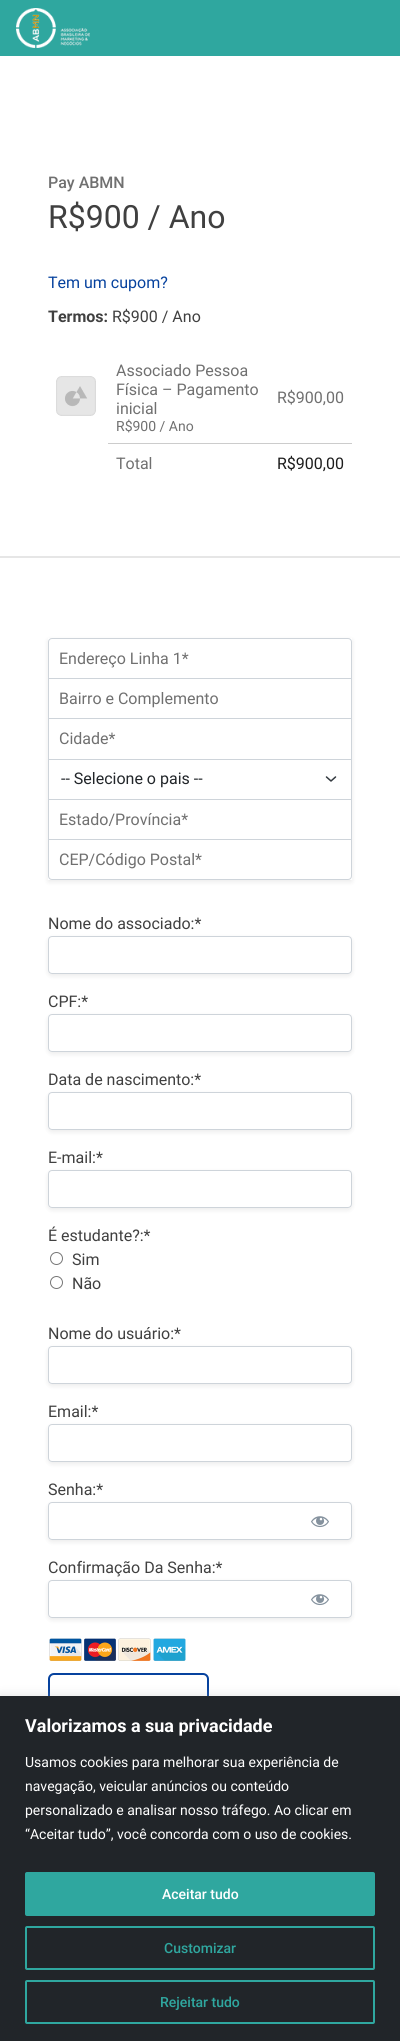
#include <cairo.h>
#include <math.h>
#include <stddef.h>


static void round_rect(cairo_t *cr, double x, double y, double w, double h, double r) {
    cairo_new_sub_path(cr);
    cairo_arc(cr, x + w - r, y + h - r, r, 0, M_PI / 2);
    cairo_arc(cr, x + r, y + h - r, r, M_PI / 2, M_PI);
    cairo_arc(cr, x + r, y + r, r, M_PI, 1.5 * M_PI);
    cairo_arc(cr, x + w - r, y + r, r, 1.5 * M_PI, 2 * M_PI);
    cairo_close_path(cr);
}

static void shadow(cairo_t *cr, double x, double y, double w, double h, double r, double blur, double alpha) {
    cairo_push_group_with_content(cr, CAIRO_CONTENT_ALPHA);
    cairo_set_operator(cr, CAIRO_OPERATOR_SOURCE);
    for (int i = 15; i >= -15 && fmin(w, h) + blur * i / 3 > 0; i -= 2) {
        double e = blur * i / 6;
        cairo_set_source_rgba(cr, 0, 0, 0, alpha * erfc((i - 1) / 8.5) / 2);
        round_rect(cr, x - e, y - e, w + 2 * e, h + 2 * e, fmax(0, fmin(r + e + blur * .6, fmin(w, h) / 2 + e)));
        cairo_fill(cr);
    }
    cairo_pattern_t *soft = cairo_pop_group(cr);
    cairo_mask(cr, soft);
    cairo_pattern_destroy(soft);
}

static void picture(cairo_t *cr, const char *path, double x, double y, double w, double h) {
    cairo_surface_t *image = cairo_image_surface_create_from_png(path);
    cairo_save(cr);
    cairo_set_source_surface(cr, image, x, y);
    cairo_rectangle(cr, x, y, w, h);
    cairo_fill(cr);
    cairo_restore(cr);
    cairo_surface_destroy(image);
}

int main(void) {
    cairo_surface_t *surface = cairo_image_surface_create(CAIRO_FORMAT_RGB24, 400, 2041);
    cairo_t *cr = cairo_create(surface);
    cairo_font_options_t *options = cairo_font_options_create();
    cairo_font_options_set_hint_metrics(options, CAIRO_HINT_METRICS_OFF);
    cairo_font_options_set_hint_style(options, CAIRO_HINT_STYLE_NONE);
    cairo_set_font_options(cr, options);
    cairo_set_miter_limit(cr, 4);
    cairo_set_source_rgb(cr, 1, 1, 1);
    cairo_paint(cr);
    cairo_set_source_rgb(cr, 0.184, 0.655, 0.624);
    cairo_rectangle(cr, 0, 0, 400, 56);
    cairo_fill(cr);
    picture(cr, "img1.png", 16, 8, 74, 40);
    cairo_set_source_rgb(cr, 0.902, 0.902, 0.902);
    cairo_rectangle(cr, 0, 556, 400, 2);
    cairo_fill(cr);
    cairo_select_font_face(cr, "Roboto Medium", CAIRO_FONT_SLANT_NORMAL, CAIRO_FONT_WEIGHT_NORMAL);
    cairo_set_font_size(cr, 16);
    cairo_set_source_rgb(cr, 0.439, 0.439, 0.439);
    cairo_move_to(cr, 48, 188);
    cairo_show_text(cr, "Pay ABMN");
    cairo_select_font_face(cr, "Roboto", CAIRO_FONT_SLANT_NORMAL, CAIRO_FONT_WEIGHT_NORMAL);
    cairo_set_font_size(cr, 32);
    cairo_set_source_rgb(cr, 0.251, 0.251, 0.251);
    cairo_move_to(cr, 48, 228);
    cairo_show_text(cr, "R$900 / Ano");
    cairo_set_font_size(cr, 16);
    cairo_set_source_rgb(cr, 0.024, 0.259, 0.62);
    cairo_move_to(cr, 48, 288);
    cairo_show_text(cr, "Tem um cupom?");
    cairo_select_font_face(cr, "Roboto", CAIRO_FONT_SLANT_NORMAL, CAIRO_FONT_WEIGHT_BOLD);
    cairo_set_source_rgb(cr, 0.251, 0.251, 0.251);
    cairo_move_to(cr, 48, 322);
    cairo_show_text(cr, "Termos:");
    cairo_select_font_face(cr, "Roboto", CAIRO_FONT_SLANT_NORMAL, CAIRO_FONT_WEIGHT_NORMAL);
    cairo_move_to(cr, 112, 322);
    cairo_show_text(cr, "R$900 / Ano");
    picture(cr, "img2.png", 56, 376, 40, 40);
    cairo_set_source_rgb(cr, 0.439, 0.439, 0.439);
    cairo_move_to(cr, 116, 376);
    cairo_show_text(cr, "Associado Pessoa");
    cairo_move_to(cr, 116, 395);
    cairo_show_text(cr, "Física – Pagamento");
    cairo_move_to(cr, 116, 414);
    cairo_show_text(cr, "inicial");
    cairo_set_font_size(cr, 14);
    cairo_move_to(cr, 116, 431);
    cairo_show_text(cr, "R$900 / Ano");
    cairo_set_font_size(cr, 16);
    cairo_move_to(cr, 277, 403);
    cairo_show_text(cr, "R$900,00");
    cairo_set_source_rgb(cr, 0.8, 0.8, 0.8);
    cairo_rectangle(cr, 108, 443, 244, 1);
    cairo_fill(cr);
    cairo_set_source_rgb(cr, 0.439, 0.439, 0.439);
    cairo_move_to(cr, 116, 469);
    cairo_show_text(cr, "Total");
    cairo_set_source_rgb(cr, 0.114, 0.114, 0.114);
    cairo_move_to(cr, 277, 469);
    cairo_show_text(cr, "R$900,00");
    cairo_save(cr);
    cairo_set_fill_rule(cr, CAIRO_FILL_RULE_EVEN_ODD);
    cairo_new_path(cr);
    cairo_move_to(cr, 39, 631);
    cairo_line_to(cr, 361, 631);
    cairo_line_to(cr, 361, 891);
    cairo_line_to(cr, 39, 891);
    cairo_close_path(cr);
    cairo_move_to(cr, 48, 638);
    cairo_line_to(cr, 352, 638);
    cairo_line_to(cr, 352, 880);
    cairo_line_to(cr, 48, 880);
    cairo_close_path(cr);
    cairo_clip(cr);
    cairo_set_source_rgb(cr, 0, 0, 0);
    shadow(cr, 48, 640, 304, 242, 0, 2.5, 0.08);
    cairo_restore(cr);
    cairo_new_path(cr);
    cairo_move_to(cr, 52, 638.5);
    cairo_line_to(cr, 348, 638.5);
    cairo_curve_to(cr, 350, 638.5, 351.5, 640, 351.5, 642);
    cairo_line_to(cr, 351.5, 678.5);
    cairo_line_to(cr, 48.5, 678.5);
    cairo_line_to(cr, 48.5, 642);
    cairo_curve_to(cr, 48.5, 640, 50, 638.5, 52, 638.5);
    cairo_close_path(cr);
    cairo_set_source_rgb(cr, 0.808, 0.831, 0.855);
    cairo_set_line_width(cr, 1);
    cairo_stroke(cr);
    cairo_set_source_rgb(cr, 0.439, 0.439, 0.439);
    cairo_move_to(cr, 59, 664);
    cairo_show_text(cr, "Endereço Linha 1*");
    cairo_rectangle(cr, 48.5, 678.5, 303, 40);
    cairo_set_source_rgb(cr, 0.808, 0.831, 0.855);
    cairo_stroke(cr);
    cairo_set_source_rgb(cr, 0.439, 0.439, 0.439);
    cairo_move_to(cr, 59, 704);
    cairo_show_text(cr, "Bairro e Complemento");
    cairo_rectangle(cr, 48.5, 718.5, 303, 41);
    cairo_set_source_rgb(cr, 0.808, 0.831, 0.855);
    cairo_stroke(cr);
    cairo_set_source_rgb(cr, 0.439, 0.439, 0.439);
    cairo_move_to(cr, 59, 744);
    cairo_show_text(cr, "Cidade*");
    cairo_new_path(cr);
    cairo_move_to(cr, 326.5, 777);
    cairo_line_to(cr, 331, 781);
    cairo_line_to(cr, 335.5, 777);
    cairo_set_source_rgb(cr, 0.204, 0.227, 0.251);
    cairo_set_line_width(cr, 1.5);
    cairo_set_line_cap(cr, CAIRO_LINE_CAP_ROUND);
    cairo_set_line_join(cr, CAIRO_LINE_JOIN_ROUND);
    cairo_stroke(cr);
    cairo_rectangle(cr, 48.5, 759.5, 303, 40);
    cairo_set_source_rgb(cr, 0.808, 0.831, 0.855);
    cairo_set_line_width(cr, 1);
    cairo_set_line_cap(cr, CAIRO_LINE_CAP_BUTT);
    cairo_set_line_join(cr, CAIRO_LINE_JOIN_MITER);
    cairo_stroke(cr);
    cairo_set_source_rgb(cr, 0.129, 0.145, 0.161);
    cairo_move_to(cr, 61, 784);
    cairo_show_text(cr, "-- Selecione o pais --");
    cairo_rectangle(cr, 48.5, 799.5, 303, 40);
    cairo_set_source_rgb(cr, 0.808, 0.831, 0.855);
    cairo_stroke(cr);
    cairo_set_source_rgb(cr, 0.439, 0.439, 0.439);
    cairo_move_to(cr, 59, 825);
    cairo_show_text(cr, "Estado/Província*");
    cairo_new_path(cr);
    cairo_move_to(cr, 48.5, 839.5);
    cairo_line_to(cr, 351.5, 839.5);
    cairo_line_to(cr, 351.5, 876);
    cairo_curve_to(cr, 351.5, 878, 350, 879.5, 348, 879.5);
    cairo_line_to(cr, 52, 879.5);
    cairo_curve_to(cr, 50, 879.5, 48.5, 878, 48.5, 876);
    cairo_close_path(cr);
    cairo_set_source_rgb(cr, 0.808, 0.831, 0.855);
    cairo_stroke(cr);
    cairo_set_source_rgb(cr, 0.439, 0.439, 0.439);
    cairo_move_to(cr, 59, 865);
    cairo_show_text(cr, "CEP/Código Postal*");
    cairo_save(cr);
    cairo_set_fill_rule(cr, CAIRO_FILL_RULE_EVEN_ODD);
    cairo_new_path(cr);
    cairo_move_to(cr, 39, 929);
    cairo_line_to(cr, 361, 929);
    cairo_line_to(cr, 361, 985);
    cairo_line_to(cr, 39, 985);
    cairo_close_path(cr);
    cairo_move_to(cr, 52, 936);
    cairo_line_to(cr, 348, 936);
    cairo_curve_to(cr, 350, 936, 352, 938, 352, 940);
    cairo_line_to(cr, 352, 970);
    cairo_curve_to(cr, 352, 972, 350, 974, 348, 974);
    cairo_line_to(cr, 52, 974);
    cairo_curve_to(cr, 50, 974, 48, 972, 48, 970);
    cairo_line_to(cr, 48, 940);
    cairo_curve_to(cr, 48, 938, 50, 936, 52, 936);
    cairo_close_path(cr);
    cairo_clip(cr);
    cairo_set_source_rgb(cr, 0, 0, 0);
    shadow(cr, 48, 938, 304, 38, 4, 2.5, 0.08);
    cairo_restore(cr);
    cairo_set_source_rgb(cr, 0.251, 0.251, 0.251);
    cairo_move_to(cr, 48, 929);
    cairo_show_text(cr, "Nome do associado:*");
    round_rect(cr, 48.5, 936.5, 303, 37, 3.5);
    cairo_set_source_rgb(cr, 0.808, 0.831, 0.855);
    cairo_stroke(cr);
    cairo_save(cr);
    cairo_set_fill_rule(cr, CAIRO_FILL_RULE_EVEN_ODD);
    cairo_new_path(cr);
    cairo_move_to(cr, 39, 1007);
    cairo_line_to(cr, 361, 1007);
    cairo_line_to(cr, 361, 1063);
    cairo_line_to(cr, 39, 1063);
    cairo_close_path(cr);
    cairo_move_to(cr, 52, 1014);
    cairo_line_to(cr, 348, 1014);
    cairo_curve_to(cr, 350, 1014, 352, 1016, 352, 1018);
    cairo_line_to(cr, 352, 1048);
    cairo_curve_to(cr, 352, 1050, 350, 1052, 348, 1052);
    cairo_line_to(cr, 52, 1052);
    cairo_curve_to(cr, 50, 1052, 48, 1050, 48, 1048);
    cairo_line_to(cr, 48, 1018);
    cairo_curve_to(cr, 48, 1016, 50, 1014, 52, 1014);
    cairo_close_path(cr);
    cairo_clip(cr);
    cairo_set_source_rgb(cr, 0, 0, 0);
    shadow(cr, 48, 1016, 304, 38, 4, 2.5, 0.08);
    cairo_restore(cr);
    cairo_set_source_rgb(cr, 0.251, 0.251, 0.251);
    cairo_move_to(cr, 48, 1007);
    cairo_show_text(cr, "CPF:*");
    round_rect(cr, 48.5, 1014.5, 303, 37, 3.5);
    cairo_set_source_rgb(cr, 0.808, 0.831, 0.855);
    cairo_stroke(cr);
    cairo_save(cr);
    cairo_set_fill_rule(cr, CAIRO_FILL_RULE_EVEN_ODD);
    cairo_new_path(cr);
    cairo_move_to(cr, 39, 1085);
    cairo_line_to(cr, 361, 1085);
    cairo_line_to(cr, 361, 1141);
    cairo_line_to(cr, 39, 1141);
    cairo_close_path(cr);
    cairo_move_to(cr, 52, 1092);
    cairo_line_to(cr, 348, 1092);
    cairo_curve_to(cr, 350, 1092, 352, 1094, 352, 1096);
    cairo_line_to(cr, 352, 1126);
    cairo_curve_to(cr, 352, 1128, 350, 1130, 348, 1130);
    cairo_line_to(cr, 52, 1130);
    cairo_curve_to(cr, 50, 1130, 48, 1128, 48, 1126);
    cairo_line_to(cr, 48, 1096);
    cairo_curve_to(cr, 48, 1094, 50, 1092, 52, 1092);
    cairo_close_path(cr);
    cairo_clip(cr);
    cairo_set_source_rgb(cr, 0, 0, 0);
    shadow(cr, 48, 1094, 304, 38, 4, 2.5, 0.08);
    cairo_restore(cr);
    cairo_set_source_rgb(cr, 0.251, 0.251, 0.251);
    cairo_move_to(cr, 48, 1085);
    cairo_show_text(cr, "Data de nascimento:*");
    round_rect(cr, 48.5, 1092.5, 303, 37, 3.5);
    cairo_set_source_rgb(cr, 0.808, 0.831, 0.855);
    cairo_stroke(cr);
    cairo_save(cr);
    cairo_set_fill_rule(cr, CAIRO_FILL_RULE_EVEN_ODD);
    cairo_new_path(cr);
    cairo_move_to(cr, 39, 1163);
    cairo_line_to(cr, 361, 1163);
    cairo_line_to(cr, 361, 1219);
    cairo_line_to(cr, 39, 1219);
    cairo_close_path(cr);
    cairo_move_to(cr, 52, 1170);
    cairo_line_to(cr, 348, 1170);
    cairo_curve_to(cr, 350, 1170, 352, 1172, 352, 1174);
    cairo_line_to(cr, 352, 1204);
    cairo_curve_to(cr, 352, 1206, 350, 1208, 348, 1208);
    cairo_line_to(cr, 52, 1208);
    cairo_curve_to(cr, 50, 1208, 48, 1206, 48, 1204);
    cairo_line_to(cr, 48, 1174);
    cairo_curve_to(cr, 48, 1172, 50, 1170, 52, 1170);
    cairo_close_path(cr);
    cairo_clip(cr);
    cairo_set_source_rgb(cr, 0, 0, 0);
    shadow(cr, 48, 1172, 304, 38, 4, 2.5, 0.08);
    cairo_restore(cr);
    cairo_set_source_rgb(cr, 0.251, 0.251, 0.251);
    cairo_move_to(cr, 48, 1163);
    cairo_show_text(cr, "E-mail:*");
    round_rect(cr, 48.5, 1170.5, 303, 37, 3.5);
    cairo_set_source_rgb(cr, 0.808, 0.831, 0.855);
    cairo_stroke(cr);
    cairo_set_source_rgb(cr, 0.251, 0.251, 0.251);
    cairo_move_to(cr, 48, 1241);
    cairo_show_text(cr, "É estudante?:*");
    cairo_new_path(cr);
    cairo_arc(cr, 56.5, 1258.5, 6, 0, 2 * M_PI);
    cairo_set_source_rgb(cr, 0.463, 0.463, 0.463);
    cairo_stroke(cr);
    cairo_set_source_rgb(cr, 0.251, 0.251, 0.251);
    cairo_move_to(cr, 72, 1265);
    cairo_show_text(cr, "Sim");
    cairo_new_path(cr);
    cairo_arc(cr, 56.5, 1282.5, 6, 0, 2 * M_PI);
    cairo_set_source_rgb(cr, 0.463, 0.463, 0.463);
    cairo_stroke(cr);
    cairo_set_source_rgb(cr, 0.251, 0.251, 0.251);
    cairo_move_to(cr, 72, 1289);
    cairo_show_text(cr, "Não");
    cairo_save(cr);
    cairo_set_fill_rule(cr, CAIRO_FILL_RULE_EVEN_ODD);
    cairo_new_path(cr);
    cairo_move_to(cr, 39, 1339);
    cairo_line_to(cr, 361, 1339);
    cairo_line_to(cr, 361, 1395);
    cairo_line_to(cr, 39, 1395);
    cairo_close_path(cr);
    cairo_move_to(cr, 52, 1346);
    cairo_line_to(cr, 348, 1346);
    cairo_curve_to(cr, 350, 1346, 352, 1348, 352, 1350);
    cairo_line_to(cr, 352, 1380);
    cairo_curve_to(cr, 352, 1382, 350, 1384, 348, 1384);
    cairo_line_to(cr, 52, 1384);
    cairo_curve_to(cr, 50, 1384, 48, 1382, 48, 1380);
    cairo_line_to(cr, 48, 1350);
    cairo_curve_to(cr, 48, 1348, 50, 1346, 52, 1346);
    cairo_close_path(cr);
    cairo_clip(cr);
    cairo_set_source_rgb(cr, 0, 0, 0);
    shadow(cr, 48, 1348, 304, 38, 4, 2.5, 0.08);
    cairo_restore(cr);
    cairo_move_to(cr, 48, 1339);
    cairo_show_text(cr, "Nome do usuário:*");
    round_rect(cr, 48.5, 1346.5, 303, 37, 3.5);
    cairo_set_source_rgb(cr, 0.808, 0.831, 0.855);
    cairo_stroke(cr);
    cairo_save(cr);
    cairo_set_fill_rule(cr, CAIRO_FILL_RULE_EVEN_ODD);
    cairo_new_path(cr);
    cairo_move_to(cr, 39, 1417);
    cairo_line_to(cr, 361, 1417);
    cairo_line_to(cr, 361, 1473);
    cairo_line_to(cr, 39, 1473);
    cairo_close_path(cr);
    cairo_move_to(cr, 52, 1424);
    cairo_line_to(cr, 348, 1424);
    cairo_curve_to(cr, 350, 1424, 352, 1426, 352, 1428);
    cairo_line_to(cr, 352, 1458);
    cairo_curve_to(cr, 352, 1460, 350, 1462, 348, 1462);
    cairo_line_to(cr, 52, 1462);
    cairo_curve_to(cr, 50, 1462, 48, 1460, 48, 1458);
    cairo_line_to(cr, 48, 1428);
    cairo_curve_to(cr, 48, 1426, 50, 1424, 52, 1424);
    cairo_close_path(cr);
    cairo_clip(cr);
    cairo_set_source_rgb(cr, 0, 0, 0);
    shadow(cr, 48, 1426, 304, 38, 4, 2.5, 0.08);
    cairo_restore(cr);
    cairo_set_source_rgb(cr, 0.251, 0.251, 0.251);
    cairo_move_to(cr, 48, 1417);
    cairo_show_text(cr, "Email:*");
    round_rect(cr, 48.5, 1424.5, 303, 37, 3.5);
    cairo_set_source_rgb(cr, 0.808, 0.831, 0.855);
    cairo_stroke(cr);
    cairo_set_source_rgb(cr, 0.251, 0.251, 0.251);
    cairo_move_to(cr, 48, 1495);
    cairo_show_text(cr, "Senha:*");
    cairo_save(cr);
    cairo_set_fill_rule(cr, CAIRO_FILL_RULE_EVEN_ODD);
    cairo_new_path(cr);
    cairo_move_to(cr, 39, 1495);
    cairo_line_to(cr, 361, 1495);
    cairo_line_to(cr, 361, 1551);
    cairo_line_to(cr, 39, 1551);
    cairo_close_path(cr);
    cairo_move_to(cr, 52, 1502);
    cairo_line_to(cr, 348, 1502);
    cairo_curve_to(cr, 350, 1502, 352, 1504, 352, 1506);
    cairo_line_to(cr, 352, 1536);
    cairo_curve_to(cr, 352, 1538, 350, 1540, 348, 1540);
    cairo_line_to(cr, 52, 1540);
    cairo_curve_to(cr, 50, 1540, 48, 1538, 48, 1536);
    cairo_line_to(cr, 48, 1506);
    cairo_curve_to(cr, 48, 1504, 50, 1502, 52, 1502);
    cairo_close_path(cr);
    cairo_clip(cr);
    cairo_set_source_rgb(cr, 0, 0, 0);
    shadow(cr, 48, 1504, 304, 38, 4, 2.5, 0.08);
    cairo_restore(cr);
    round_rect(cr, 48.5, 1502.5, 303, 37, 3.5);
    cairo_set_source_rgb(cr, 0.808, 0.831, 0.855);
    cairo_stroke(cr);
    picture(cr, "img3.png", 311, 1516, 18, 12);
    cairo_set_source_rgb(cr, 0.251, 0.251, 0.251);
    cairo_move_to(cr, 48, 1573);
    cairo_show_text(cr, "Confirmação Da Senha:*");
    cairo_save(cr);
    cairo_set_fill_rule(cr, CAIRO_FILL_RULE_EVEN_ODD);
    cairo_new_path(cr);
    cairo_move_to(cr, 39, 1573);
    cairo_line_to(cr, 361, 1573);
    cairo_line_to(cr, 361, 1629);
    cairo_line_to(cr, 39, 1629);
    cairo_close_path(cr);
    cairo_move_to(cr, 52, 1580);
    cairo_line_to(cr, 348, 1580);
    cairo_curve_to(cr, 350, 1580, 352, 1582, 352, 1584);
    cairo_line_to(cr, 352, 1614);
    cairo_curve_to(cr, 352, 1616, 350, 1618, 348, 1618);
    cairo_line_to(cr, 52, 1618);
    cairo_curve_to(cr, 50, 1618, 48, 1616, 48, 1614);
    cairo_line_to(cr, 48, 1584);
    cairo_curve_to(cr, 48, 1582, 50, 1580, 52, 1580);
    cairo_close_path(cr);
    cairo_clip(cr);
    cairo_set_source_rgb(cr, 0, 0, 0);
    shadow(cr, 48, 1582, 304, 38, 4, 2.5, 0.08);
    cairo_restore(cr);
    round_rect(cr, 48.5, 1580.5, 303, 37, 3.5);
    cairo_set_source_rgb(cr, 0.808, 0.831, 0.855);
    cairo_stroke(cr);
    picture(cr, "img3.png", 311, 1594, 18, 12);
    picture(cr, "img4.png", 49, 1638, 137, 23);
    round_rect(cr, 49, 1674, 159, 91, 5);
    cairo_set_source_rgb(cr, 0.024, 0.259, 0.62);
    cairo_set_line_width(cr, 2);
    cairo_stroke(cr);
    cairo_set_source_rgb(cr, 0.675, 0.671, 0.671);
    shadow(cr, 0, 1695, 400, 345, 0, 5, 0.3);
    cairo_set_source_rgb(cr, 0.129, 0.145, 0.161);
    cairo_rectangle(cr, 0, 1696, 400, 345);
    cairo_fill(cr);
    cairo_select_font_face(cr, "Roboto", CAIRO_FONT_SLANT_NORMAL, CAIRO_FONT_WEIGHT_BOLD);
    cairo_set_font_size(cr, 18);
    cairo_set_source_rgb(cr, 1, 1, 1);
    cairo_move_to(cr, 25, 1732);
    cairo_show_text(cr, "Valorizamos a sua privacidade");
    cairo_select_font_face(cr, "Roboto", CAIRO_FONT_SLANT_NORMAL, CAIRO_FONT_WEIGHT_NORMAL);
    cairo_set_font_size(cr, 14);
    cairo_move_to(cr, 25, 1767);
    cairo_show_text(cr, "Usamos cookies para melhorar sua experiência de");
    cairo_move_to(cr, 25, 1791);
    cairo_show_text(cr, "navegação, veicular anúncios ou conteúdo");
    cairo_move_to(cr, 25, 1815);
    cairo_show_text(cr, "personalizado e analisar nosso tráfego. Ao clicar em");
    cairo_move_to(cr, 25, 1839);
    cairo_show_text(cr, "“Aceitar tudo”, você concorda com o uso de cookies.");
    cairo_set_source_rgb(cr, 0.184, 0.655, 0.624);
    round_rect(cr, 26, 1873, 348, 42, 1);
    cairo_fill_preserve(cr);
    cairo_stroke(cr);
    cairo_select_font_face(cr, "Roboto Medium", CAIRO_FONT_SLANT_NORMAL, CAIRO_FONT_WEIGHT_NORMAL);
    cairo_set_source_rgb(cr, 1, 1, 1);
    cairo_move_to(cr, 162, 1899);
    cairo_show_text(cr, "Aceitar tudo");
    round_rect(cr, 26, 1927, 348, 42, 1);
    cairo_set_source_rgb(cr, 0.184, 0.655, 0.624);
    cairo_stroke(cr);
    cairo_move_to(cr, 164, 1953);
    cairo_show_text(cr, "Customizar");
    round_rect(cr, 26, 1981, 348, 42, 1);
    cairo_stroke(cr);
    cairo_move_to(cr, 160, 2007);
    cairo_show_text(cr, "Rejeitar tudo");
    cairo_surface_write_to_png(surface, "page.png");
    cairo_font_options_destroy(options);
    cairo_destroy(cr);
    cairo_surface_destroy(surface);
    return 0;
}
